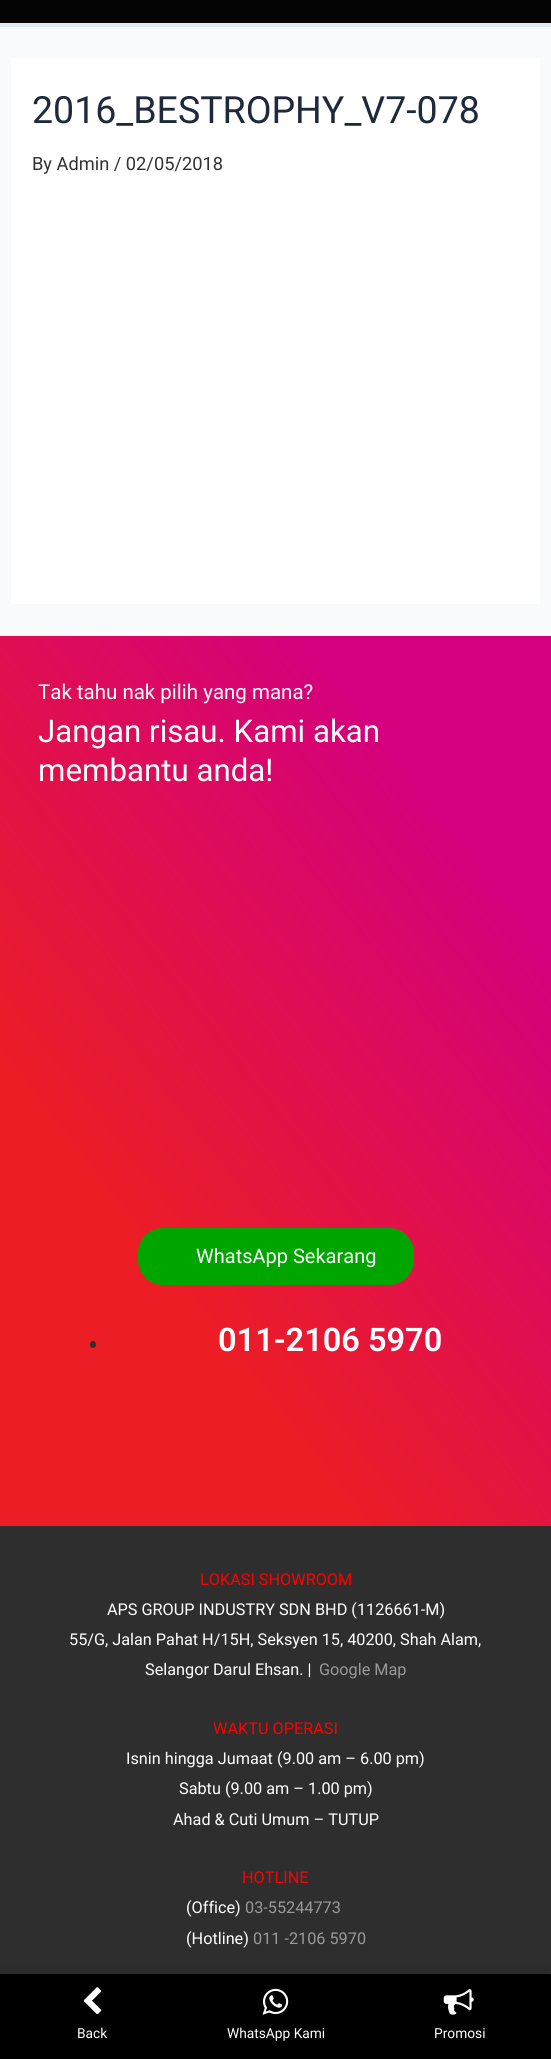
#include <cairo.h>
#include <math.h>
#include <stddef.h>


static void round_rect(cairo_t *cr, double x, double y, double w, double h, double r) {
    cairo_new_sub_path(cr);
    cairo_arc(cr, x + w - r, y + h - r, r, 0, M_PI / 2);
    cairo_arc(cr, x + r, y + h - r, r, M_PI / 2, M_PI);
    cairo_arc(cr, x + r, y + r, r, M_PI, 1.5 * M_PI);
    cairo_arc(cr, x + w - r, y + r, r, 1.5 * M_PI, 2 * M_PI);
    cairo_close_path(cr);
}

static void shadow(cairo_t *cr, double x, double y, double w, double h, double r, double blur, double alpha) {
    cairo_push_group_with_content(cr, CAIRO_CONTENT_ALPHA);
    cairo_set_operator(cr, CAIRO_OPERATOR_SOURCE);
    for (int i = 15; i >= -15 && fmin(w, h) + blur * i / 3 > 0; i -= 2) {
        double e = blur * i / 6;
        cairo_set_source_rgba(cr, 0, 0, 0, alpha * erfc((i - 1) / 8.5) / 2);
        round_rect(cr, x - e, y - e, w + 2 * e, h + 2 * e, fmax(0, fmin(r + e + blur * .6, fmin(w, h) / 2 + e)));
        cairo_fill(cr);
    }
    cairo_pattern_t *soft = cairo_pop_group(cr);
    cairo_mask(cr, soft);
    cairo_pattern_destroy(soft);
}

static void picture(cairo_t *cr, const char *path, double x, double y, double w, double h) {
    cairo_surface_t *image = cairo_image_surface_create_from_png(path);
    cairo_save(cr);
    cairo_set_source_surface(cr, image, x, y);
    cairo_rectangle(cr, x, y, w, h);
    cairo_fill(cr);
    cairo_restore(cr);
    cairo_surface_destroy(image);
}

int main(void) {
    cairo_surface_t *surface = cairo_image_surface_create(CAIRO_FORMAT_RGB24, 551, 2059);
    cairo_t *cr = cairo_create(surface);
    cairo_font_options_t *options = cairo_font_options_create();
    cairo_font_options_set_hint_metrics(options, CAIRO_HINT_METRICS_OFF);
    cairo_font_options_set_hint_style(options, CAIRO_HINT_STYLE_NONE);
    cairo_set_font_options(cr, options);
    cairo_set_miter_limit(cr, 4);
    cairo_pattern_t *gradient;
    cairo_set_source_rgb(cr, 0.976, 0.98, 0.984);
    cairo_paint(cr);
    cairo_set_source_rgb(cr, 0.016, 0.016, 0.016);
    cairo_rectangle(cr, 0, 0, 551, 23);
    cairo_fill(cr);
    cairo_set_source_rgb(cr, 0.886, 0.91, 0.941);
    cairo_rectangle(cr, 0, 23, 551, 4);
    cairo_fill(cr);
    cairo_set_source_rgb(cr, 1, 1, 1);
    cairo_rectangle(cr, 11, 58, 529, 546);
    cairo_fill(cr);
    cairo_select_font_face(cr, "Roboto", CAIRO_FONT_SLANT_NORMAL, CAIRO_FONT_WEIGHT_NORMAL);
    cairo_set_font_size(cr, 37.5);
    cairo_set_source_rgb(cr, 0.118, 0.161, 0.231);
    cairo_move_to(cr, 32, 123);
    cairo_show_text(cr, "2016_BESTROPHY_V7-078");
    cairo_set_font_size(cr, 18.25);
    cairo_set_source_rgb(cr, 0.196, 0.196, 0.196);
    cairo_move_to(cr, 32, 170);
    cairo_show_text(cr, "By Admin / 02/05/2018");
    gradient = cairo_pattern_create_linear(-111, 1384, 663, 779);
    cairo_pattern_add_color_stop_rgba(gradient, 0.29, 0.925, 0.114, 0.145, 1);
    cairo_pattern_add_color_stop_rgba(gradient, 0.8, 0.831, 0, 0.49, 1);
    cairo_set_source(cr, gradient);
    cairo_pattern_destroy(gradient);
    cairo_rectangle(cr, 0, 636, 551, 890);
    cairo_fill(cr);
    cairo_set_font_size(cr, 20.5);
    cairo_set_source_rgb(cr, 1, 1, 1);
    cairo_move_to(cr, 38, 699);
    cairo_show_text(cr, "Tak tahu nak pilih yang mana?");
    cairo_set_font_size(cr, 31.25);
    cairo_move_to(cr, 38, 742);
    cairo_show_text(cr, "Jangan risau. Kami akan");
    cairo_move_to(cr, 38, 781);
    cairo_show_text(cr, "membantu anda!");
    cairo_set_source_rgb(cr, 0, 0.647, 0);
    round_rect(cr, 138, 1228, 276, 57, 25);
    cairo_fill(cr);
    cairo_set_font_size(cr, 20);
    cairo_set_source_rgb(cr, 1, 1, 1);
    cairo_move_to(cr, 196, 1263);
    cairo_show_text(cr, "WhatsApp Sekarang");
    cairo_set_source_rgb(cr, 0.184, 0.184, 0.184);
    round_rect(cr, 90, 1341, 6, 7, 3);
    cairo_fill(cr);
    cairo_select_font_face(cr, "Roboto SemiBold", CAIRO_FONT_SLANT_NORMAL, CAIRO_FONT_WEIGHT_NORMAL);
    cairo_set_font_size(cr, 32.5);
    cairo_set_source_rgb(cr, 1, 1, 1);
    cairo_move_to(cr, 218, 1351);
    cairo_show_text(cr, "011-2106 5970");
    cairo_set_source_rgb(cr, 0.18, 0.18, 0.18);
    cairo_rectangle(cr, 0, 1526, 551, 448);
    cairo_fill(cr);
    cairo_select_font_face(cr, "Roboto", CAIRO_FONT_SLANT_NORMAL, CAIRO_FONT_WEIGHT_NORMAL);
    cairo_set_font_size(cr, 16.25);
    cairo_set_source_rgb(cr, 1, 0, 0);
    cairo_move_to(cr, 200, 1585);
    cairo_show_text(cr, "LOKASI SHOWROOM");
    cairo_set_source_rgb(cr, 1, 1, 1);
    cairo_move_to(cr, 107, 1615);
    cairo_show_text(cr, "APS GROUP INDUSTRY SDN BHD (1126661-M)");
    cairo_move_to(cr, 69, 1645);
    cairo_show_text(cr, "55/G, Jalan Pahat H/15H, Seksyen 15, 40200, Shah Alam,");
    cairo_move_to(cr, 145, 1675);
    cairo_show_text(cr, "Selangor Darul Ehsan. |");
    cairo_set_source_rgb(cr, 0.6, 0.6, 0.6);
    cairo_move_to(cr, 319, 1675);
    cairo_show_text(cr, "Google Map");
    cairo_set_source_rgb(cr, 1, 0, 0);
    cairo_move_to(cr, 213, 1734);
    cairo_show_text(cr, "WAKTU OPERASI");
    cairo_set_source_rgb(cr, 1, 1, 1);
    cairo_move_to(cr, 126, 1764);
    cairo_show_text(cr, "Isnin hingga Jumaat (9.00 am – 6.00 pm)");
    cairo_move_to(cr, 179, 1794);
    cairo_show_text(cr, "Sabtu (9.00 am – 1.00 pm)");
    cairo_move_to(cr, 173, 1825);
    cairo_show_text(cr, "Ahad & Cuti Umum – TUTUP");
    cairo_set_source_rgb(cr, 1, 0, 0);
    cairo_move_to(cr, 242, 1883);
    cairo_show_text(cr, "HOTLINE");
    cairo_set_source_rgb(cr, 1, 1, 1);
    cairo_move_to(cr, 186, 1913);
    cairo_show_text(cr, "(Office)");
    cairo_set_source_rgb(cr, 0.6, 0.6, 0.6);
    cairo_move_to(cr, 245, 1913);
    cairo_show_text(cr, "03-55244773");
    cairo_set_source_rgb(cr, 1, 1, 1);
    cairo_move_to(cr, 186, 1944);
    cairo_show_text(cr, "(Hotline)");
    cairo_set_source_rgb(cr, 0.6, 0.6, 0.6);
    cairo_move_to(cr, 253, 1944);
    cairo_show_text(cr, "011 -2106 5970");
    cairo_set_source_rgb(cr, 0, 0, 0);
    shadow(cr, 0, 1968, 551, 86, 0, 6, 0.1);
    cairo_set_source_rgb(cr, 0, 0, 0);
    cairo_rectangle(cr, 0, 1974, 551, 85);
    cairo_fill(cr);
    picture(cr, "img1.png", 83, 1987, 19, 28);
    cairo_set_font_size(cr, 13.75);
    cairo_set_source_rgb(cr, 1, 1, 1);
    cairo_move_to(cr, 77, 2038);
    cairo_show_text(cr, "Back");
    picture(cr, "img2.png", 262, 1988, 27, 27);
    cairo_move_to(cr, 227, 2038);
    cairo_show_text(cr, "WhatsApp Kami");
    picture(cr, "img3.png", 443, 1989, 31, 26);
    cairo_move_to(cr, 434, 2038);
    cairo_show_text(cr, "Promosi");
    cairo_surface_write_to_png(surface, "page.png");
    cairo_font_options_destroy(options);
    cairo_destroy(cr);
    cairo_surface_destroy(surface);
    return 0;
}
